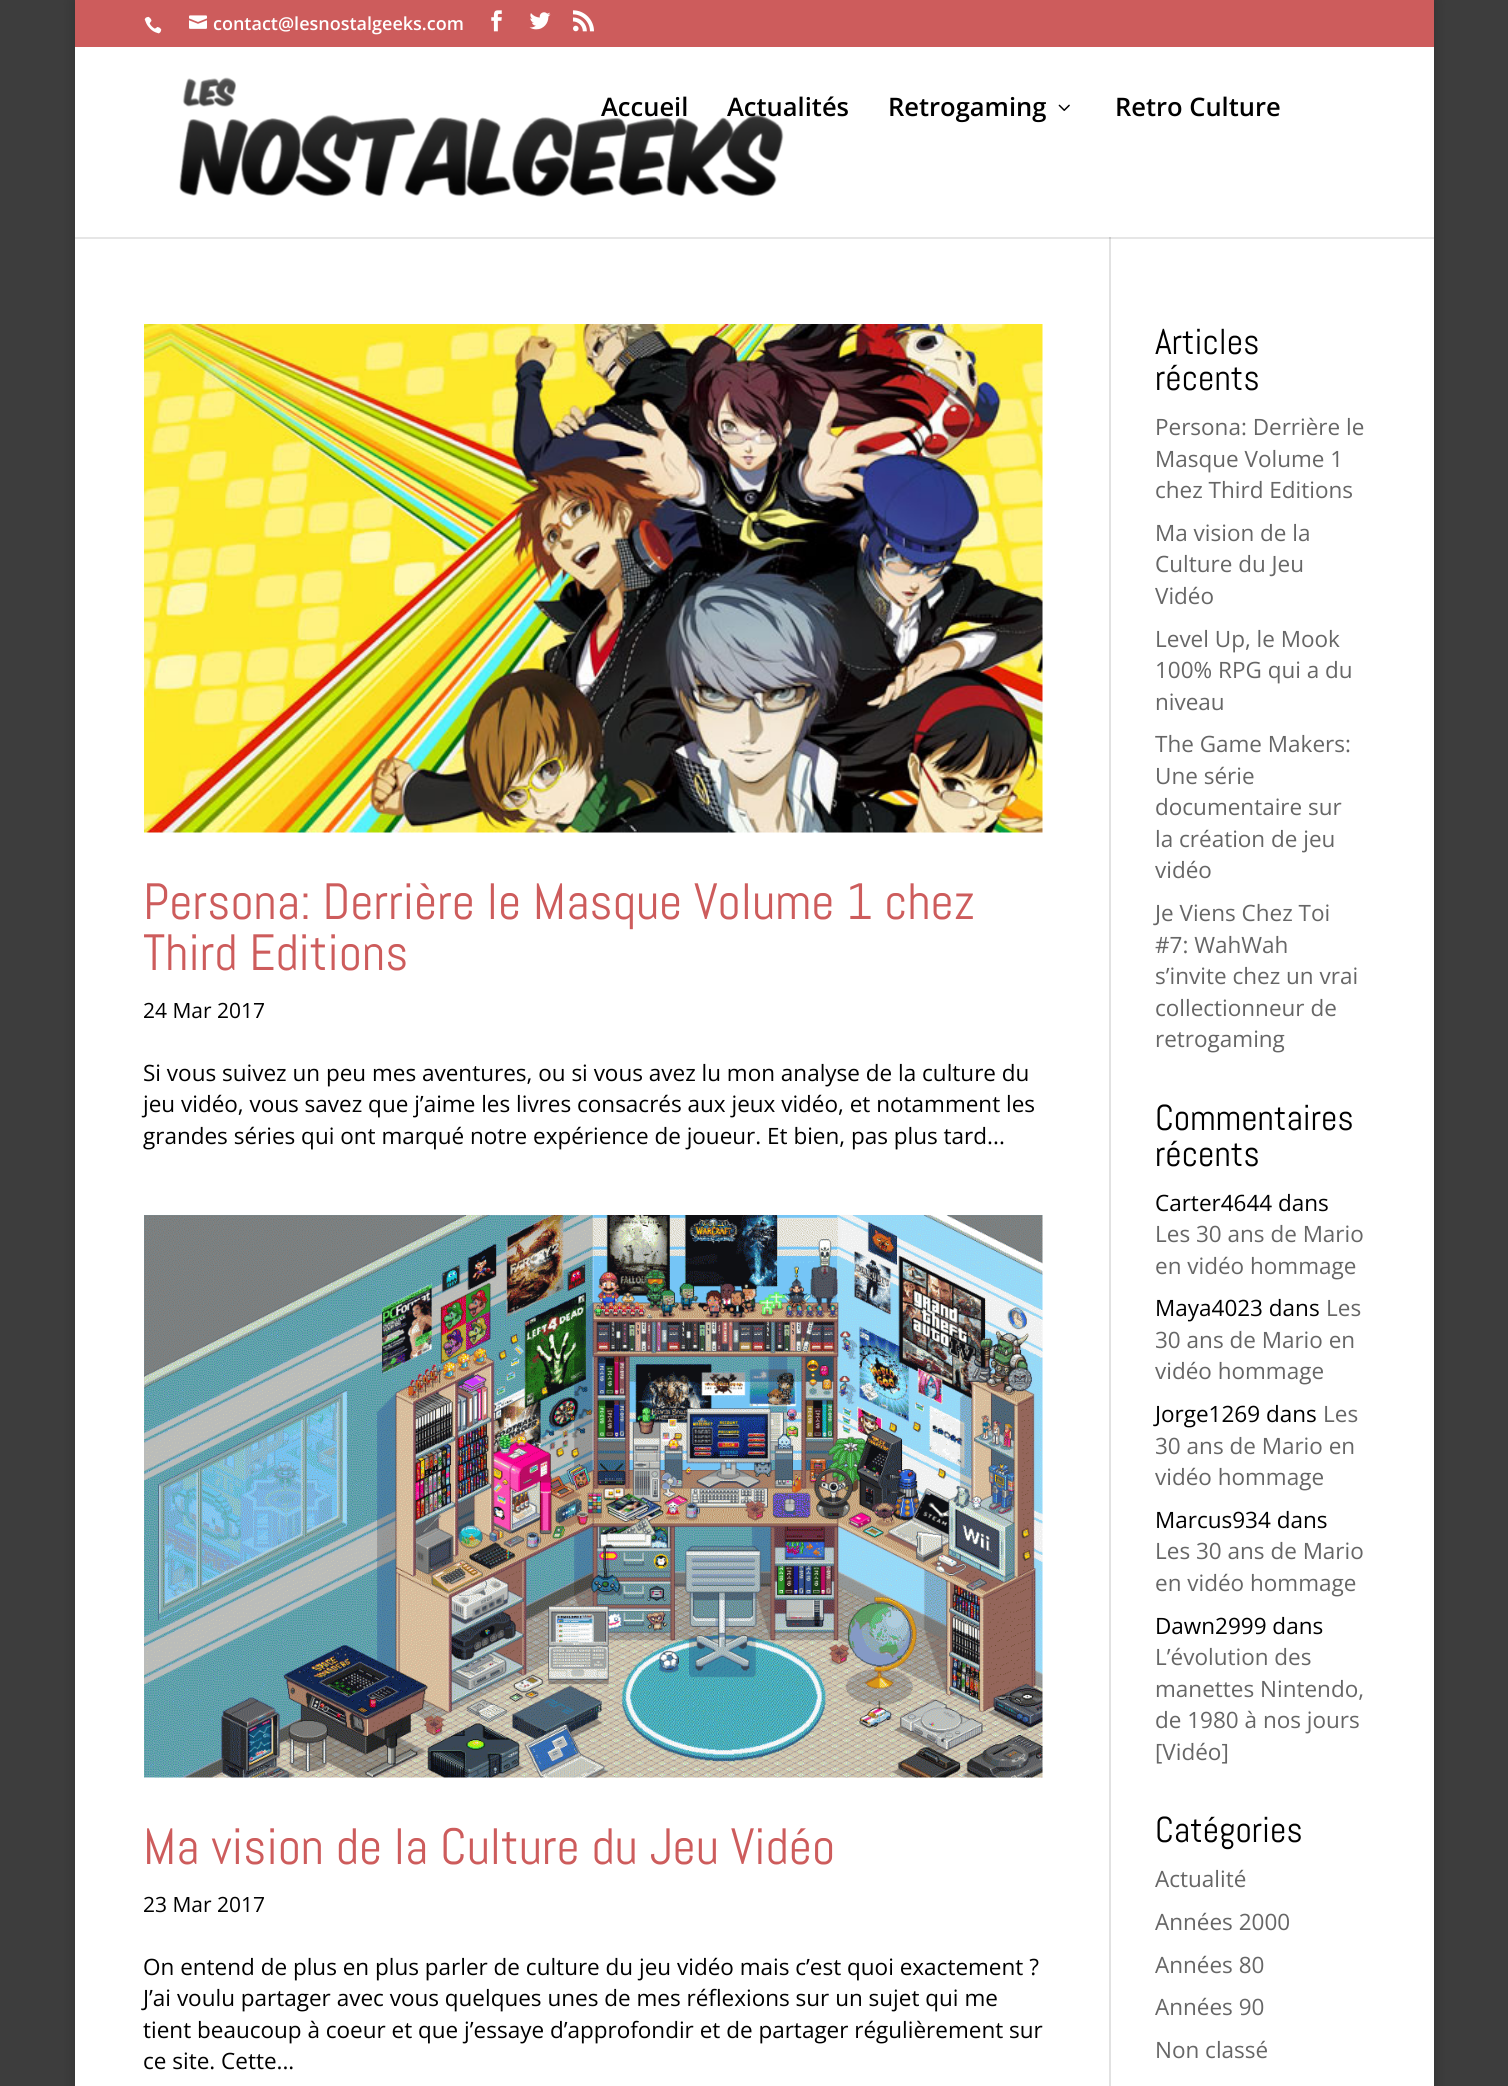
#include <cairo.h>
#include <math.h>
#include <stddef.h>


static void round_rect(cairo_t *cr, double x, double y, double w, double h, double r) {
    cairo_new_sub_path(cr);
    cairo_arc(cr, x + w - r, y + h - r, r, 0, M_PI / 2);
    cairo_arc(cr, x + r, y + h - r, r, M_PI / 2, M_PI);
    cairo_arc(cr, x + r, y + r, r, M_PI, 1.5 * M_PI);
    cairo_arc(cr, x + w - r, y + r, r, 1.5 * M_PI, 2 * M_PI);
    cairo_close_path(cr);
}

static void shadow(cairo_t *cr, double x, double y, double w, double h, double r, double blur, double alpha) {
    cairo_push_group_with_content(cr, CAIRO_CONTENT_ALPHA);
    cairo_set_operator(cr, CAIRO_OPERATOR_SOURCE);
    for (int i = 15; i >= -15 && fmin(w, h) + blur * i / 3 > 0; i -= 2) {
        double e = blur * i / 6;
        cairo_set_source_rgba(cr, 0, 0, 0, alpha * erfc((i - 1) / 8.5) / 2);
        round_rect(cr, x - e, y - e, w + 2 * e, h + 2 * e, fmax(0, fmin(r + e + blur * .6, fmin(w, h) / 2 + e)));
        cairo_fill(cr);
    }
    cairo_pattern_t *soft = cairo_pop_group(cr);
    cairo_mask(cr, soft);
    cairo_pattern_destroy(soft);
}

static void picture(cairo_t *cr, const char *path, double x, double y, double w, double h) {
    cairo_surface_t *image = cairo_image_surface_create_from_png(path);
    cairo_save(cr);
    cairo_set_source_surface(cr, image, x, y);
    cairo_rectangle(cr, x, y, w, h);
    cairo_fill(cr);
    cairo_restore(cr);
    cairo_surface_destroy(image);
}

int main(void) {
    cairo_surface_t *surface = cairo_image_surface_create(CAIRO_FORMAT_RGB24, 1508, 2086);
    cairo_t *cr = cairo_create(surface);
    cairo_font_options_t *options = cairo_font_options_create();
    cairo_font_options_set_hint_metrics(options, CAIRO_HINT_METRICS_OFF);
    cairo_font_options_set_hint_style(options, CAIRO_HINT_STYLE_NONE);
    cairo_set_font_options(cr, options);
    cairo_set_miter_limit(cr, 4);
    cairo_set_source_rgb(cr, 0.239, 0.239, 0.239);
    cairo_paint(cr);
    cairo_set_source_rgb(cr, 0, 0, 0);
    shadow(cr, 75, 0, 1359, 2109, 0, 7.5, 0.2);
    cairo_set_source_rgb(cr, 0.804, 0.361, 0.361);
    cairo_rectangle(cr, 75, 0, 1359, 47);
    cairo_fill(cr);
    picture(cr, "img1.png", 144, 16, 18, 18);
    picture(cr, "img2.png", 189, 15, 18, 14);
    cairo_select_font_face(cr, "Open Sans SemiBold", CAIRO_FONT_SLANT_NORMAL, CAIRO_FONT_WEIGHT_NORMAL);
    cairo_set_font_size(cr, 18);
    cairo_set_source_rgb(cr, 1, 1, 1);
    cairo_move_to(cr, 213, 30);
    cairo_show_text(cr, "contact@lesnostalgeeks.com");
    picture(cr, "img3.png", 491, 10, 11, 22);
    picture(cr, "img4.png", 529, 12, 22, 18);
    picture(cr, "img5.png", 573, 10, 21, 22);
    cairo_rectangle(cr, 75, 47, 1359, 190);
    cairo_fill(cr);
    picture(cr, "img6.png", 179, 77, 605, 120);
    cairo_set_font_size(cr, 25.5);
    cairo_set_source_rgb(cr, 0, 0, 0);
    cairo_move_to(cr, 601, 116);
    cairo_show_text(cr, "Accueil");
    cairo_move_to(cr, 727, 116);
    cairo_show_text(cr, "Actualités");
    cairo_move_to(cr, 888, 116);
    cairo_show_text(cr, "Retrogaming");
    picture(cr, "img7.png", 1058, 104, 12, 7);
    cairo_move_to(cr, 1115, 116);
    cairo_show_text(cr, "Retro Culture");
    cairo_set_source_rgb(cr, 1, 1, 1);
    cairo_rectangle(cr, 75, 239, 1359, 1847);
    cairo_fill(cr);
    cairo_set_source_rgb(cr, 0.902, 0.902, 0.902);
    cairo_rectangle(cr, 75, 237, 1359, 2);
    cairo_fill(cr);
    cairo_set_source_rgb(cr, 0.886, 0.886, 0.886);
    cairo_rectangle(cr, 1109, 237, 2, 1849);
    cairo_fill(cr);
    cairo_set_source_rgb(cr, 0.796, 0.796, 0.796);
    cairo_rectangle(cr, 1109, 237, 2, 2);
    cairo_fill(cr);
    picture(cr, "img8.png", 144, 324, 899, 509);
    cairo_select_font_face(cr, "Abel", CAIRO_FONT_SLANT_NORMAL, CAIRO_FONT_WEIGHT_NORMAL);
    cairo_set_font_size(cr, 51);
    cairo_set_source_rgb(cr, 0.804, 0.361, 0.361);
    cairo_move_to(cr, 143, 919);
    cairo_show_text(cr, "Persona: Derrière le Masque Volume 1 chez");
    cairo_move_to(cr, 143, 970);
    cairo_show_text(cr, "Third Editions");
    cairo_select_font_face(cr, "Open Sans", CAIRO_FONT_SLANT_NORMAL, CAIRO_FONT_WEIGHT_NORMAL);
    cairo_set_font_size(cr, 21);
    cairo_set_source_rgb(cr, 0, 0, 0);
    cairo_move_to(cr, 143, 1018);
    cairo_show_text(cr, "24 Mar 2017");
    cairo_set_font_size(cr, 22.5);
    cairo_move_to(cr, 143, 1081);
    cairo_show_text(cr, "Si vous suivez un peu mes aventures, ou si vous avez lu mon analyse de la culture du");
    cairo_move_to(cr, 143, 1112);
    cairo_show_text(cr, "jeu vidéo, vous savez que j’aime les livres consacrés aux jeux vidéo, et notamment les");
    cairo_move_to(cr, 143, 1144);
    cairo_show_text(cr, "grandes séries qui ont marqué notre expérience de joueur. Et bien, pas plus tard...");
    picture(cr, "img9.png", 144, 1215, 899, 563);
    cairo_select_font_face(cr, "Abel", CAIRO_FONT_SLANT_NORMAL, CAIRO_FONT_WEIGHT_NORMAL);
    cairo_set_font_size(cr, 51);
    cairo_set_source_rgb(cr, 0.804, 0.361, 0.361);
    cairo_move_to(cr, 143, 1864);
    cairo_show_text(cr, "Ma vision de la Culture du Jeu Vidéo");
    cairo_select_font_face(cr, "Open Sans", CAIRO_FONT_SLANT_NORMAL, CAIRO_FONT_WEIGHT_NORMAL);
    cairo_set_font_size(cr, 21);
    cairo_set_source_rgb(cr, 0, 0, 0);
    cairo_move_to(cr, 143, 1912);
    cairo_show_text(cr, "23 Mar 2017");
    cairo_set_font_size(cr, 22.5);
    cairo_move_to(cr, 143, 1975);
    cairo_show_text(cr, "On entend de plus en plus parler de culture du jeu vidéo mais c’est quoi exactement ?");
    cairo_move_to(cr, 143, 2006);
    cairo_show_text(cr, "J’ai voulu partager avec vous quelques unes de mes réflexions sur un sujet qui me");
    cairo_move_to(cr, 143, 2038);
    cairo_show_text(cr, "tient beaucoup à coeur et que j’essaye d’approfondir et de partager régulièrement sur");
    cairo_move_to(cr, 143, 2069);
    cairo_show_text(cr, "ce site. Cette...");
    cairo_select_font_face(cr, "Abel", CAIRO_FONT_SLANT_NORMAL, CAIRO_FONT_WEIGHT_NORMAL);
    cairo_set_font_size(cr, 36);
    cairo_move_to(cr, 1155, 354);
    cairo_show_text(cr, "Articles");
    cairo_move_to(cr, 1155, 390);
    cairo_show_text(cr, "récents");
    cairo_select_font_face(cr, "Open Sans", CAIRO_FONT_SLANT_NORMAL, CAIRO_FONT_WEIGHT_NORMAL);
    cairo_set_font_size(cr, 22.5);
    cairo_set_source_rgb(cr, 0.4, 0.4, 0.4);
    cairo_move_to(cr, 1155, 435);
    cairo_show_text(cr, "Persona: Derrière le");
    cairo_move_to(cr, 1155, 467);
    cairo_show_text(cr, "Masque Volume 1");
    cairo_move_to(cr, 1155, 498);
    cairo_show_text(cr, "chez Third Editions");
    cairo_move_to(cr, 1155, 541);
    cairo_show_text(cr, "Ma vision de la");
    cairo_move_to(cr, 1155, 572);
    cairo_show_text(cr, "Culture du Jeu");
    cairo_move_to(cr, 1155, 604);
    cairo_show_text(cr, "Vidéo");
    cairo_move_to(cr, 1155, 647);
    cairo_show_text(cr, "Level Up, le Mook");
    cairo_move_to(cr, 1155, 678);
    cairo_show_text(cr, "100% RPG qui a du");
    cairo_move_to(cr, 1155, 710);
    cairo_show_text(cr, "niveau");
    cairo_move_to(cr, 1155, 752);
    cairo_show_text(cr, "The Game Makers:");
    cairo_move_to(cr, 1155, 784);
    cairo_show_text(cr, "Une série");
    cairo_move_to(cr, 1155, 815);
    cairo_show_text(cr, "documentaire sur");
    cairo_move_to(cr, 1155, 847);
    cairo_show_text(cr, "la création de jeu");
    cairo_move_to(cr, 1155, 878);
    cairo_show_text(cr, "vidéo");
    cairo_move_to(cr, 1155, 921);
    cairo_show_text(cr, "Je Viens Chez Toi");
    cairo_move_to(cr, 1155, 953);
    cairo_show_text(cr, "#7: WahWah");
    cairo_move_to(cr, 1155, 984);
    cairo_show_text(cr, "s’invite chez un vrai");
    cairo_move_to(cr, 1155, 1016);
    cairo_show_text(cr, "collectionneur de");
    cairo_move_to(cr, 1155, 1047);
    cairo_show_text(cr, "retrogaming");
    cairo_select_font_face(cr, "Abel", CAIRO_FONT_SLANT_NORMAL, CAIRO_FONT_WEIGHT_NORMAL);
    cairo_set_font_size(cr, 36);
    cairo_set_source_rgb(cr, 0, 0, 0);
    cairo_move_to(cr, 1155, 1130);
    cairo_show_text(cr, "Commentaires");
    cairo_move_to(cr, 1155, 1166);
    cairo_show_text(cr, "récents");
    cairo_select_font_face(cr, "Open Sans", CAIRO_FONT_SLANT_NORMAL, CAIRO_FONT_WEIGHT_NORMAL);
    cairo_set_font_size(cr, 22.5);
    cairo_move_to(cr, 1155, 1211);
    cairo_show_text(cr, "Carter4644 dans");
    cairo_set_source_rgb(cr, 0.4, 0.4, 0.4);
    cairo_move_to(cr, 1155, 1242);
    cairo_show_text(cr, "Les 30 ans de Mario");
    cairo_move_to(cr, 1155, 1274);
    cairo_show_text(cr, "en vidéo hommage");
    cairo_set_source_rgb(cr, 0, 0, 0);
    cairo_move_to(cr, 1155, 1316);
    cairo_show_text(cr, "Maya4023 dans");
    cairo_set_source_rgb(cr, 0.4, 0.4, 0.4);
    cairo_move_to(cr, 1326, 1316);
    cairo_show_text(cr, "Les");
    cairo_move_to(cr, 1155, 1348);
    cairo_show_text(cr, "30 ans de Mario en");
    cairo_move_to(cr, 1155, 1379);
    cairo_show_text(cr, "vidéo hommage");
    cairo_set_source_rgb(cr, 0, 0, 0);
    cairo_move_to(cr, 1155, 1422);
    cairo_show_text(cr, "Jorge1269 dans");
    cairo_set_source_rgb(cr, 0.4, 0.4, 0.4);
    cairo_move_to(cr, 1323, 1422);
    cairo_show_text(cr, "Les");
    cairo_move_to(cr, 1155, 1454);
    cairo_show_text(cr, "30 ans de Mario en");
    cairo_move_to(cr, 1155, 1485);
    cairo_show_text(cr, "vidéo hommage");
    cairo_set_source_rgb(cr, 0, 0, 0);
    cairo_move_to(cr, 1155, 1528);
    cairo_show_text(cr, "Marcus934 dans");
    cairo_set_source_rgb(cr, 0.4, 0.4, 0.4);
    cairo_move_to(cr, 1155, 1559);
    cairo_show_text(cr, "Les 30 ans de Mario");
    cairo_move_to(cr, 1155, 1591);
    cairo_show_text(cr, "en vidéo hommage");
    cairo_set_source_rgb(cr, 0, 0, 0);
    cairo_move_to(cr, 1155, 1634);
    cairo_show_text(cr, "Dawn2999 dans");
    cairo_set_source_rgb(cr, 0.4, 0.4, 0.4);
    cairo_move_to(cr, 1155, 1665);
    cairo_show_text(cr, "L’évolution des");
    cairo_move_to(cr, 1155, 1697);
    cairo_show_text(cr, "manettes Nintendo,");
    cairo_move_to(cr, 1155, 1728);
    cairo_show_text(cr, "de 1980 à nos jours");
    cairo_move_to(cr, 1155, 1760);
    cairo_show_text(cr, "[Vidéo]");
    cairo_select_font_face(cr, "Abel", CAIRO_FONT_SLANT_NORMAL, CAIRO_FONT_WEIGHT_NORMAL);
    cairo_set_font_size(cr, 36);
    cairo_set_source_rgb(cr, 0, 0, 0);
    cairo_move_to(cr, 1155, 1842);
    cairo_show_text(cr, "Catégories");
    cairo_select_font_face(cr, "Open Sans", CAIRO_FONT_SLANT_NORMAL, CAIRO_FONT_WEIGHT_NORMAL);
    cairo_set_font_size(cr, 22.5);
    cairo_set_source_rgb(cr, 0.4, 0.4, 0.4);
    cairo_move_to(cr, 1155, 1887);
    cairo_show_text(cr, "Actualité");
    cairo_move_to(cr, 1155, 1930);
    cairo_show_text(cr, "Années 2000");
    cairo_move_to(cr, 1155, 1973);
    cairo_show_text(cr, "Années 80");
    cairo_move_to(cr, 1155, 2015);
    cairo_show_text(cr, "Années 90");
    cairo_move_to(cr, 1155, 2058);
    cairo_show_text(cr, "Non classé");
    cairo_surface_write_to_png(surface, "page.png");
    cairo_font_options_destroy(options);
    cairo_destroy(cr);
    cairo_surface_destroy(surface);
    return 0;
}
